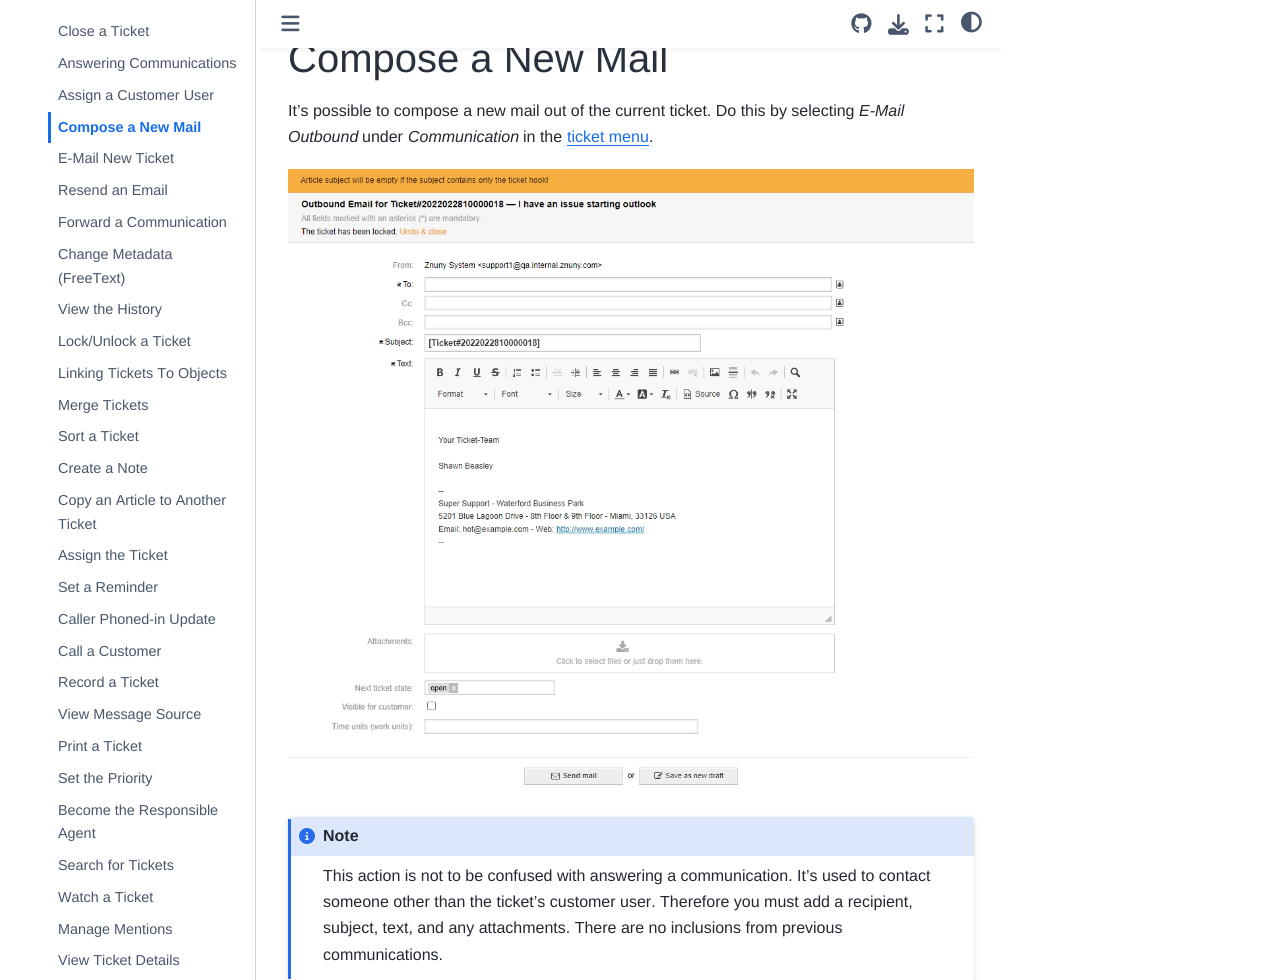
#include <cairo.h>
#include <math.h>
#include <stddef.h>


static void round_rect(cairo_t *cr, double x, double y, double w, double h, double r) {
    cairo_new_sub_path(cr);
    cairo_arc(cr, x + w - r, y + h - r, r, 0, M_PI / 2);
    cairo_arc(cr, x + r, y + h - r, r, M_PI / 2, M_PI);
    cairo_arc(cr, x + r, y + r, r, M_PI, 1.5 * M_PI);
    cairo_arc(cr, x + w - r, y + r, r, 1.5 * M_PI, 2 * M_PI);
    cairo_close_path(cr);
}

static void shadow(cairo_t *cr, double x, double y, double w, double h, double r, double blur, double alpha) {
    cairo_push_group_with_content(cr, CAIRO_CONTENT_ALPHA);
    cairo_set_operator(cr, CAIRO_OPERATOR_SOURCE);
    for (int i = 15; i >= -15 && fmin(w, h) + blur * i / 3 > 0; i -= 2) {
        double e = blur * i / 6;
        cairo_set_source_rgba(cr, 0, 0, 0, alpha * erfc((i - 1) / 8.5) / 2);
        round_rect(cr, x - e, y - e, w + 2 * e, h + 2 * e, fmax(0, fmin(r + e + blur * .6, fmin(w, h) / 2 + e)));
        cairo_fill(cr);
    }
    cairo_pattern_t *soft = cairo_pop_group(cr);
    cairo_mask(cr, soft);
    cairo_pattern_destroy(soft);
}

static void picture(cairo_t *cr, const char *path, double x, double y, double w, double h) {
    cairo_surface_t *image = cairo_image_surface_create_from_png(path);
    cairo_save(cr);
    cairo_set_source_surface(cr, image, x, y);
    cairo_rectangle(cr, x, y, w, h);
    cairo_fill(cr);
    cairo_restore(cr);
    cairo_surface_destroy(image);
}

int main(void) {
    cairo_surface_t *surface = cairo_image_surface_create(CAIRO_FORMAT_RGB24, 1278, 980);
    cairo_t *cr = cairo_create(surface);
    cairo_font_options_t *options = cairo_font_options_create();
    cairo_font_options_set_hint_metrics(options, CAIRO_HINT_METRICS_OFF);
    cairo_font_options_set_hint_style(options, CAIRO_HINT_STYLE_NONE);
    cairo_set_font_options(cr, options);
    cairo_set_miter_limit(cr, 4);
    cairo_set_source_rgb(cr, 1, 1, 1);
    cairo_paint(cr);
    cairo_set_source_rgb(cr, 0.82, 0.835, 0.855);
    cairo_rectangle(cr, 255, 0, 1, 980);
    cairo_fill(cr);
    cairo_select_font_face(cr, "Liberation Sans", CAIRO_FONT_SLANT_NORMAL, CAIRO_FONT_WEIGHT_NORMAL);
    cairo_set_font_size(cr, 14.4);
    cairo_set_source_rgb(cr, 0.282, 0.337, 0.42);
    cairo_move_to(cr, 58, 36);
    cairo_show_text(cr, "Close a Ticket");
    cairo_move_to(cr, 58, 68);
    cairo_show_text(cr, "Answering Communications");
    cairo_move_to(cr, 58, 100);
    cairo_show_text(cr, "Assign a Customer User");
    cairo_set_source_rgb(cr, 0.09, 0.427, 0.91);
    cairo_rectangle(cr, 48, 112, 3, 31);
    cairo_fill(cr);
    cairo_select_font_face(cr, "Liberation Sans", CAIRO_FONT_SLANT_NORMAL, CAIRO_FONT_WEIGHT_BOLD);
    cairo_move_to(cr, 58, 132);
    cairo_show_text(cr, "Compose a New Mail");
    cairo_select_font_face(cr, "Liberation Sans", CAIRO_FONT_SLANT_NORMAL, CAIRO_FONT_WEIGHT_NORMAL);
    cairo_set_source_rgb(cr, 0.282, 0.337, 0.42);
    cairo_move_to(cr, 58, 163);
    cairo_show_text(cr, "E-Mail New Ticket");
    cairo_move_to(cr, 58, 195);
    cairo_show_text(cr, "Resend an Email");
    cairo_move_to(cr, 58, 227);
    cairo_show_text(cr, "Forward a Communication");
    cairo_move_to(cr, 58, 259);
    cairo_show_text(cr, "Change Metadata");
    cairo_move_to(cr, 58, 283);
    cairo_show_text(cr, "(FreeText)");
    cairo_move_to(cr, 58, 314);
    cairo_show_text(cr, "View the History");
    cairo_move_to(cr, 58, 346);
    cairo_show_text(cr, "Lock/Unlock a Ticket");
    cairo_move_to(cr, 58, 378);
    cairo_show_text(cr, "Linking Tickets To Objects");
    cairo_move_to(cr, 58, 410);
    cairo_show_text(cr, "Merge Tickets");
    cairo_move_to(cr, 58, 441);
    cairo_show_text(cr, "Sort a Ticket");
    cairo_move_to(cr, 58, 473);
    cairo_show_text(cr, "Create a Note");
    cairo_move_to(cr, 58, 505);
    cairo_show_text(cr, "Copy an Article to Another");
    cairo_move_to(cr, 58, 529);
    cairo_show_text(cr, "Ticket");
    cairo_move_to(cr, 58, 560);
    cairo_show_text(cr, "Assign the Ticket");
    cairo_move_to(cr, 58, 592);
    cairo_show_text(cr, "Set a Reminder");
    cairo_move_to(cr, 58, 624);
    cairo_show_text(cr, "Caller Phoned-in Update");
    cairo_move_to(cr, 58, 656);
    cairo_show_text(cr, "Call a Customer");
    cairo_move_to(cr, 58, 687);
    cairo_show_text(cr, "Record a Ticket");
    cairo_move_to(cr, 58, 719);
    cairo_show_text(cr, "View Message Source");
    cairo_move_to(cr, 58, 751);
    cairo_show_text(cr, "Print a Ticket");
    cairo_move_to(cr, 58, 783);
    cairo_show_text(cr, "Set the Priority");
    cairo_move_to(cr, 58, 815);
    cairo_show_text(cr, "Become the Responsible");
    cairo_move_to(cr, 58, 838);
    cairo_show_text(cr, "Agent");
    cairo_move_to(cr, 58, 870);
    cairo_show_text(cr, "Search for Tickets");
    cairo_move_to(cr, 58, 902);
    cairo_show_text(cr, "Watch a Ticket");
    cairo_move_to(cr, 58, 934);
    cairo_show_text(cr, "Manage Mentions");
    cairo_move_to(cr, 58, 965);
    cairo_show_text(cr, "View Ticket Details");
    cairo_set_source_rgb(cr, 0, 0, 0);
    shadow(cr, 262, 12, 738, 36, 0, 3, 0.1);
    cairo_set_font_size(cr, 40);
    cairo_set_source_rgb(cr, 0.161, 0.192, 0.239);
    cairo_move_to(cr, 288, 72);
    cairo_show_text(cr, "Compose a New Mail");
    cairo_set_source_rgb(cr, 1, 1, 1);
    cairo_rectangle(cr, 258, 8, 746, 40);
    cairo_fill(cr);
    picture(cr, "img1.png", 281, 15, 19, 17);
    picture(cr, "img2.png", 851, 13, 21, 20);
    picture(cr, "img3.png", 888, 14, 21, 21);
    picture(cr, "img4.png", 925, 14, 19, 19);
    picture(cr, "img5.png", 961, 11, 21, 22);
    cairo_set_font_size(cr, 16);
    cairo_set_source_rgb(cr, 0.133, 0.157, 0.196);
    cairo_move_to(cr, 288, 116);
    cairo_show_text(cr, "It’s possible to compose a new mail out of the current ticket. Do this by selecting");
    cairo_select_font_face(cr, "Liberation Sans", CAIRO_FONT_SLANT_ITALIC, CAIRO_FONT_WEIGHT_NORMAL);
    cairo_move_to(cr, 859, 116);
    cairo_show_text(cr, "E-Mail");
    cairo_move_to(cr, 288, 142);
    cairo_show_text(cr, "Outbound");
    cairo_select_font_face(cr, "Liberation Sans", CAIRO_FONT_SLANT_NORMAL, CAIRO_FONT_WEIGHT_NORMAL);
    cairo_move_to(cr, 362, 142);
    cairo_show_text(cr, "under");
    cairo_select_font_face(cr, "Liberation Sans", CAIRO_FONT_SLANT_ITALIC, CAIRO_FONT_WEIGHT_NORMAL);
    cairo_move_to(cr, 408, 142);
    cairo_show_text(cr, "Communication");
    cairo_select_font_face(cr, "Liberation Sans", CAIRO_FONT_SLANT_NORMAL, CAIRO_FONT_WEIGHT_NORMAL);
    cairo_move_to(cr, 523, 142);
    cairo_show_text(cr, "in the");
    cairo_set_source_rgb(cr, 0.09, 0.427, 0.91);
    cairo_move_to(cr, 567, 142);
    cairo_show_text(cr, "ticket menu");
    cairo_rectangle(cr, 567, 145, 82, 1);
    cairo_fill(cr);
    cairo_set_source_rgb(cr, 0.133, 0.157, 0.196);
    cairo_move_to(cr, 649, 142);
    cairo_show_text(cr, ".");
    picture(cr, "img6.png", 288, 169, 686, 616);
    cairo_set_source_rgb(cr, 0, 0, 0);
    shadow(cr, 288, 817, 686, 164, 4, 0.5, 0.1);
    shadow(cr, 288, 820, 686, 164, 4, 4, 0.1);
    cairo_set_source_rgb(cr, 1, 1, 1);
    round_rect(cr, 288, 817, 686, 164, 4);
    cairo_fill(cr);
    cairo_set_source_rgb(cr, 0.153, 0.42, 0.914);
    cairo_rectangle(cr, 288, 819, 3, 160);
    cairo_fill(cr);
    cairo_set_source_rgb(cr, 0.863, 0.906, 0.988);
    cairo_new_path(cr);
    cairo_move_to(cr, 292, 817);
    cairo_curve_to(cr, 291, 817, 291, 819, 291, 821);
    cairo_line_to(cr, 291, 856);
    cairo_line_to(cr, 974, 856);
    cairo_line_to(cr, 974, 821);
    cairo_curve_to(cr, 974, 819, 972, 817, 970, 817);
    cairo_close_path(cr);
    cairo_fill(cr);
    picture(cr, "img7.png", 299, 828, 16, 16);
    cairo_select_font_face(cr, "Liberation Sans", CAIRO_FONT_SLANT_NORMAL, CAIRO_FONT_WEIGHT_BOLD);
    cairo_set_source_rgb(cr, 0.133, 0.157, 0.196);
    cairo_move_to(cr, 323, 841);
    cairo_show_text(cr, "Note");
    cairo_select_font_face(cr, "Liberation Sans", CAIRO_FONT_SLANT_NORMAL, CAIRO_FONT_WEIGHT_NORMAL);
    cairo_move_to(cr, 323, 881);
    cairo_show_text(cr, "This action is not to be confused with answering a communication. It’s used to contact");
    cairo_move_to(cr, 323, 907);
    cairo_show_text(cr, "someone other than the ticket’s customer user. Therefore you must add a recipient,");
    cairo_move_to(cr, 323, 933);
    cairo_show_text(cr, "subject, text, and any attachments. There are no inclusions from previous");
    cairo_move_to(cr, 323, 960);
    cairo_show_text(cr, "communications.");
    cairo_surface_write_to_png(surface, "page.png");
    cairo_font_options_destroy(options);
    cairo_destroy(cr);
    cairo_surface_destroy(surface);
    return 0;
}
